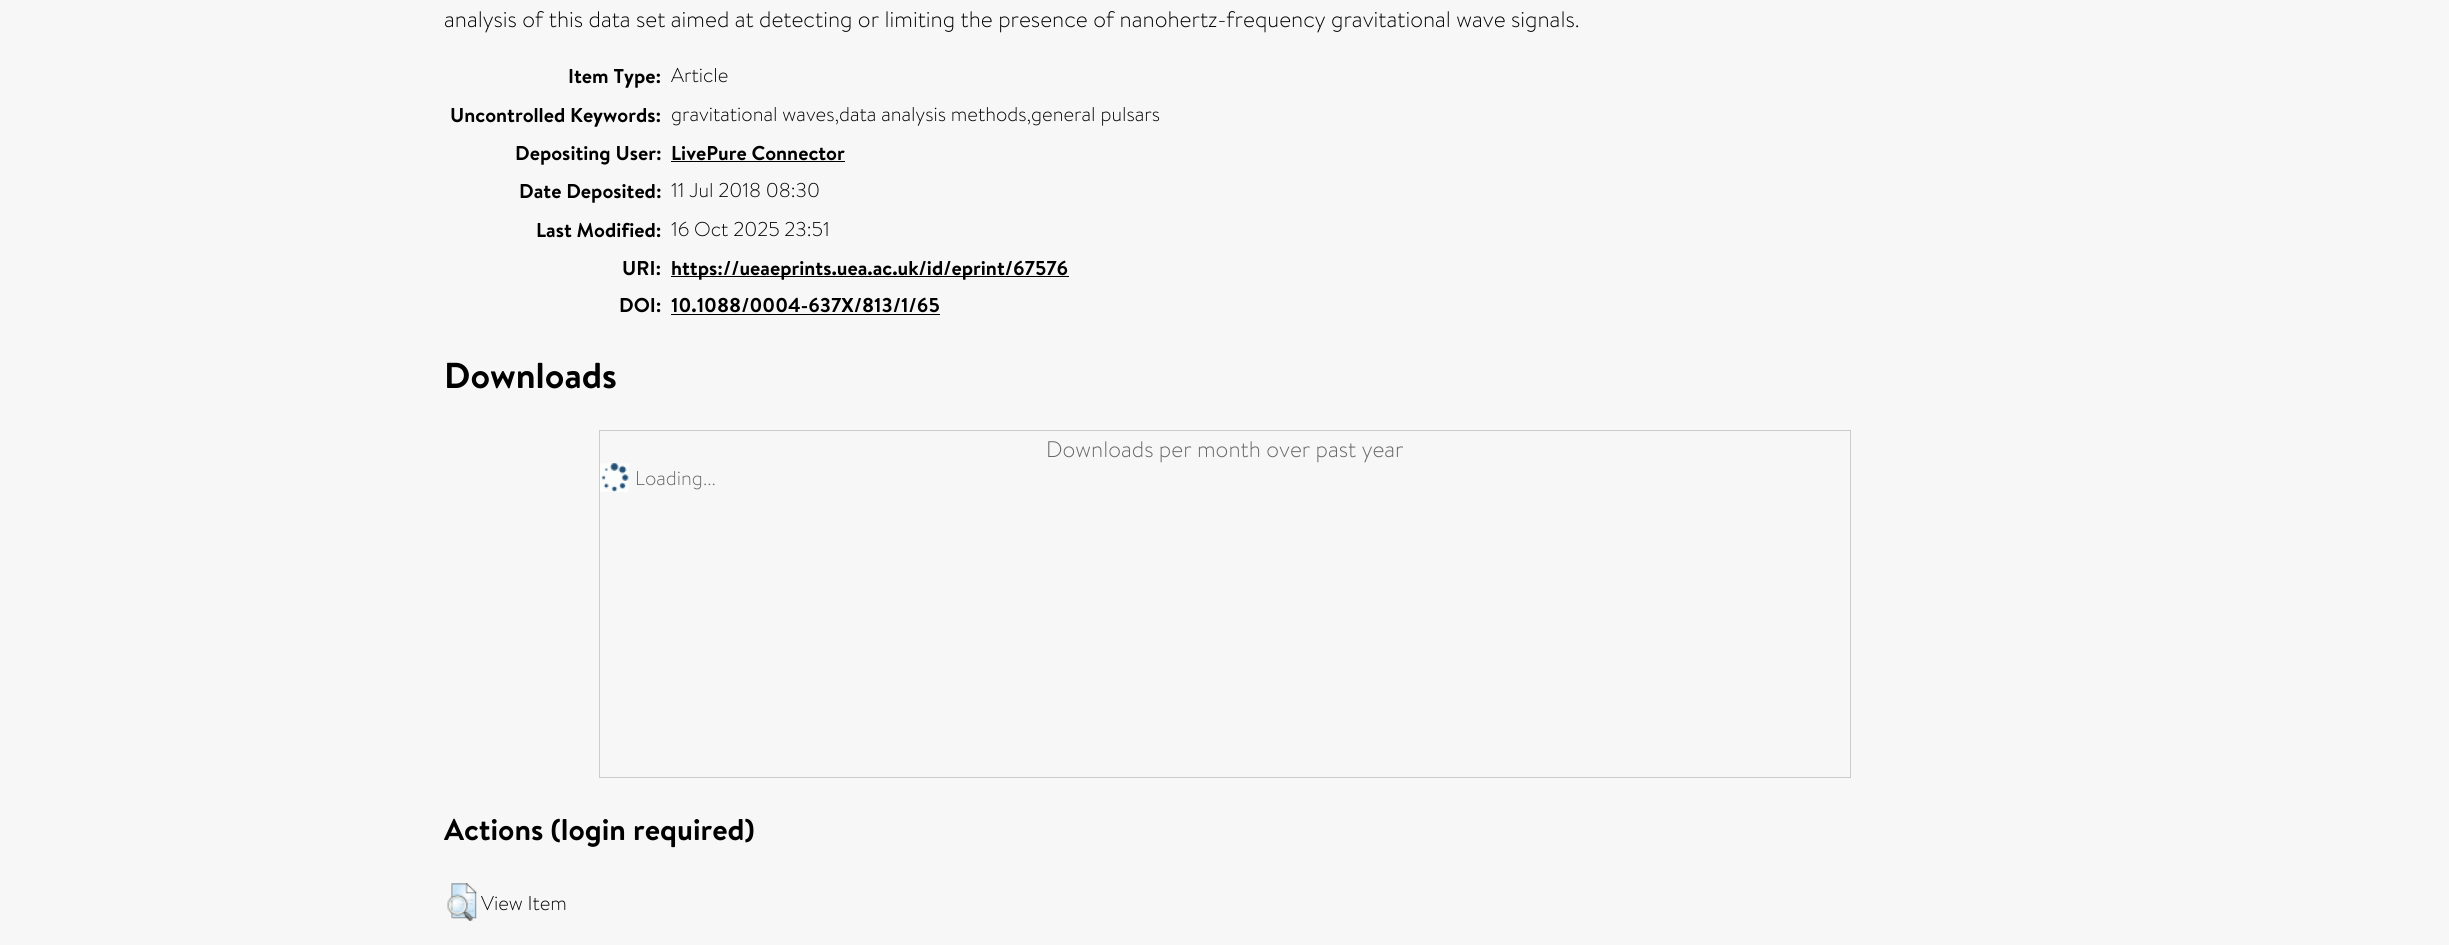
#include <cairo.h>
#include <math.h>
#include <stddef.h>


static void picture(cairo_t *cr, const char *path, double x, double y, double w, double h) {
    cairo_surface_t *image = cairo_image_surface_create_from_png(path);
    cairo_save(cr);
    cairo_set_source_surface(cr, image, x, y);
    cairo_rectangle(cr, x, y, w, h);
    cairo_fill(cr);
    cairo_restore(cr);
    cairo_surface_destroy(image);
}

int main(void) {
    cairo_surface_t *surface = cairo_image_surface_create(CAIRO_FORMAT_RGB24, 2449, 945);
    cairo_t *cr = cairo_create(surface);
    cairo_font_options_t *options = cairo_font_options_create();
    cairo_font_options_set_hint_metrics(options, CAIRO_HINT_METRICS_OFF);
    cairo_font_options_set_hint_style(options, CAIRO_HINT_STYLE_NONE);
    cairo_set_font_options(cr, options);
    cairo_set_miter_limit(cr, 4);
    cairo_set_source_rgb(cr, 0.965, 0.965, 0.965);
    cairo_paint(cr);
    cairo_select_font_face(cr, "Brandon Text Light", CAIRO_FONT_SLANT_NORMAL, CAIRO_FONT_WEIGHT_NORMAL);
    cairo_set_font_size(cr, 22.5);
    cairo_set_source_rgb(cr, 0, 0, 0);
    cairo_move_to(cr, 444, 27);
    cairo_show_text(cr, "analysis of this data set aimed at detecting or limiting the presence of nanohertz-frequency gravitational wave signals.");
    cairo_select_font_face(cr, "Brandon Text", CAIRO_FONT_SLANT_NORMAL, CAIRO_FONT_WEIGHT_BOLD);
    cairo_set_font_size(cr, 20);
    cairo_move_to(cr, 568, 83);
    cairo_show_text(cr, "Item Type:");
    cairo_select_font_face(cr, "Brandon Text Light", CAIRO_FONT_SLANT_NORMAL, CAIRO_FONT_WEIGHT_NORMAL);
    cairo_move_to(cr, 671, 82);
    cairo_show_text(cr, "Article");
    cairo_select_font_face(cr, "Brandon Text", CAIRO_FONT_SLANT_NORMAL, CAIRO_FONT_WEIGHT_BOLD);
    cairo_move_to(cr, 450, 122);
    cairo_show_text(cr, "Uncontrolled Keywords:");
    cairo_select_font_face(cr, "Brandon Text Light", CAIRO_FONT_SLANT_NORMAL, CAIRO_FONT_WEIGHT_NORMAL);
    cairo_move_to(cr, 671, 121);
    cairo_show_text(cr, "gravitational waves,data analysis methods,general pulsars");
    cairo_select_font_face(cr, "Brandon Text", CAIRO_FONT_SLANT_NORMAL, CAIRO_FONT_WEIGHT_BOLD);
    cairo_move_to(cr, 515, 160);
    cairo_show_text(cr, "Depositing User:");
    cairo_move_to(cr, 671, 160);
    cairo_show_text(cr, "LivePure Connector");
    cairo_rectangle(cr, 671, 161, 174, 1);
    cairo_fill(cr);
    cairo_move_to(cr, 519, 198);
    cairo_show_text(cr, "Date Deposited:");
    cairo_select_font_face(cr, "Brandon Text Light", CAIRO_FONT_SLANT_NORMAL, CAIRO_FONT_WEIGHT_NORMAL);
    cairo_move_to(cr, 671, 197);
    cairo_show_text(cr, "11 Jul 2018 08:30");
    cairo_select_font_face(cr, "Brandon Text", CAIRO_FONT_SLANT_NORMAL, CAIRO_FONT_WEIGHT_BOLD);
    cairo_move_to(cr, 536, 237);
    cairo_show_text(cr, "Last Modified:");
    cairo_select_font_face(cr, "Brandon Text Light", CAIRO_FONT_SLANT_NORMAL, CAIRO_FONT_WEIGHT_NORMAL);
    cairo_move_to(cr, 671, 236);
    cairo_show_text(cr, "16 Oct 2025 23:51");
    cairo_select_font_face(cr, "Brandon Text", CAIRO_FONT_SLANT_NORMAL, CAIRO_FONT_WEIGHT_BOLD);
    cairo_move_to(cr, 622, 275);
    cairo_show_text(cr, "URI:");
    cairo_rectangle(cr, 671, 276, 398, 1);
    cairo_fill(cr);
    cairo_move_to(cr, 671, 275);
    cairo_show_text(cr, "https://ueaeprints.uea.ac.uk/id/eprint/67576");
    cairo_move_to(cr, 619, 312);
    cairo_show_text(cr, "DOI:");
    cairo_move_to(cr, 671, 312);
    cairo_show_text(cr, "10.1088/0004-637X/813/1/65");
    cairo_rectangle(cr, 671, 314, 269, 1);
    cairo_fill(cr);
    cairo_set_font_size(cr, 36);
    cairo_move_to(cr, 444, 388);
    cairo_show_text(cr, "Downloads");
    cairo_rectangle(cr, 599.5, 430.5, 1251, 347);
    cairo_set_source_rgb(cr, 0.8, 0.8, 0.8);
    cairo_set_line_width(cr, 1);
    cairo_stroke(cr);
    cairo_select_font_face(cr, "Brandon Text Light", CAIRO_FONT_SLANT_NORMAL, CAIRO_FONT_WEIGHT_NORMAL);
    cairo_set_font_size(cr, 22.5);
    cairo_set_source_rgb(cr, 0.4, 0.4, 0.4);
    cairo_move_to(cr, 1046, 457);
    cairo_show_text(cr, "Downloads per month over past year");
    picture(cr, "img1.png", 600, 463, 29, 29);
    cairo_set_font_size(cr, 20);
    cairo_move_to(cr, 635, 485);
    cairo_show_text(cr, "Loading...");
    cairo_select_font_face(cr, "Brandon Text", CAIRO_FONT_SLANT_NORMAL, CAIRO_FONT_WEIGHT_BOLD);
    cairo_set_font_size(cr, 30);
    cairo_set_source_rgb(cr, 0, 0, 0);
    cairo_move_to(cr, 444, 840);
    cairo_show_text(cr, "Actions (login required)");
    picture(cr, "img2.png", 447, 883, 30, 38);
    cairo_select_font_face(cr, "Brandon Text Light", CAIRO_FONT_SLANT_NORMAL, CAIRO_FONT_WEIGHT_NORMAL);
    cairo_set_font_size(cr, 20);
    cairo_move_to(cr, 481, 910);
    cairo_show_text(cr, "View Item");
    cairo_surface_write_to_png(surface, "page.png");
    cairo_font_options_destroy(options);
    cairo_destroy(cr);
    cairo_surface_destroy(surface);
    return 0;
}
